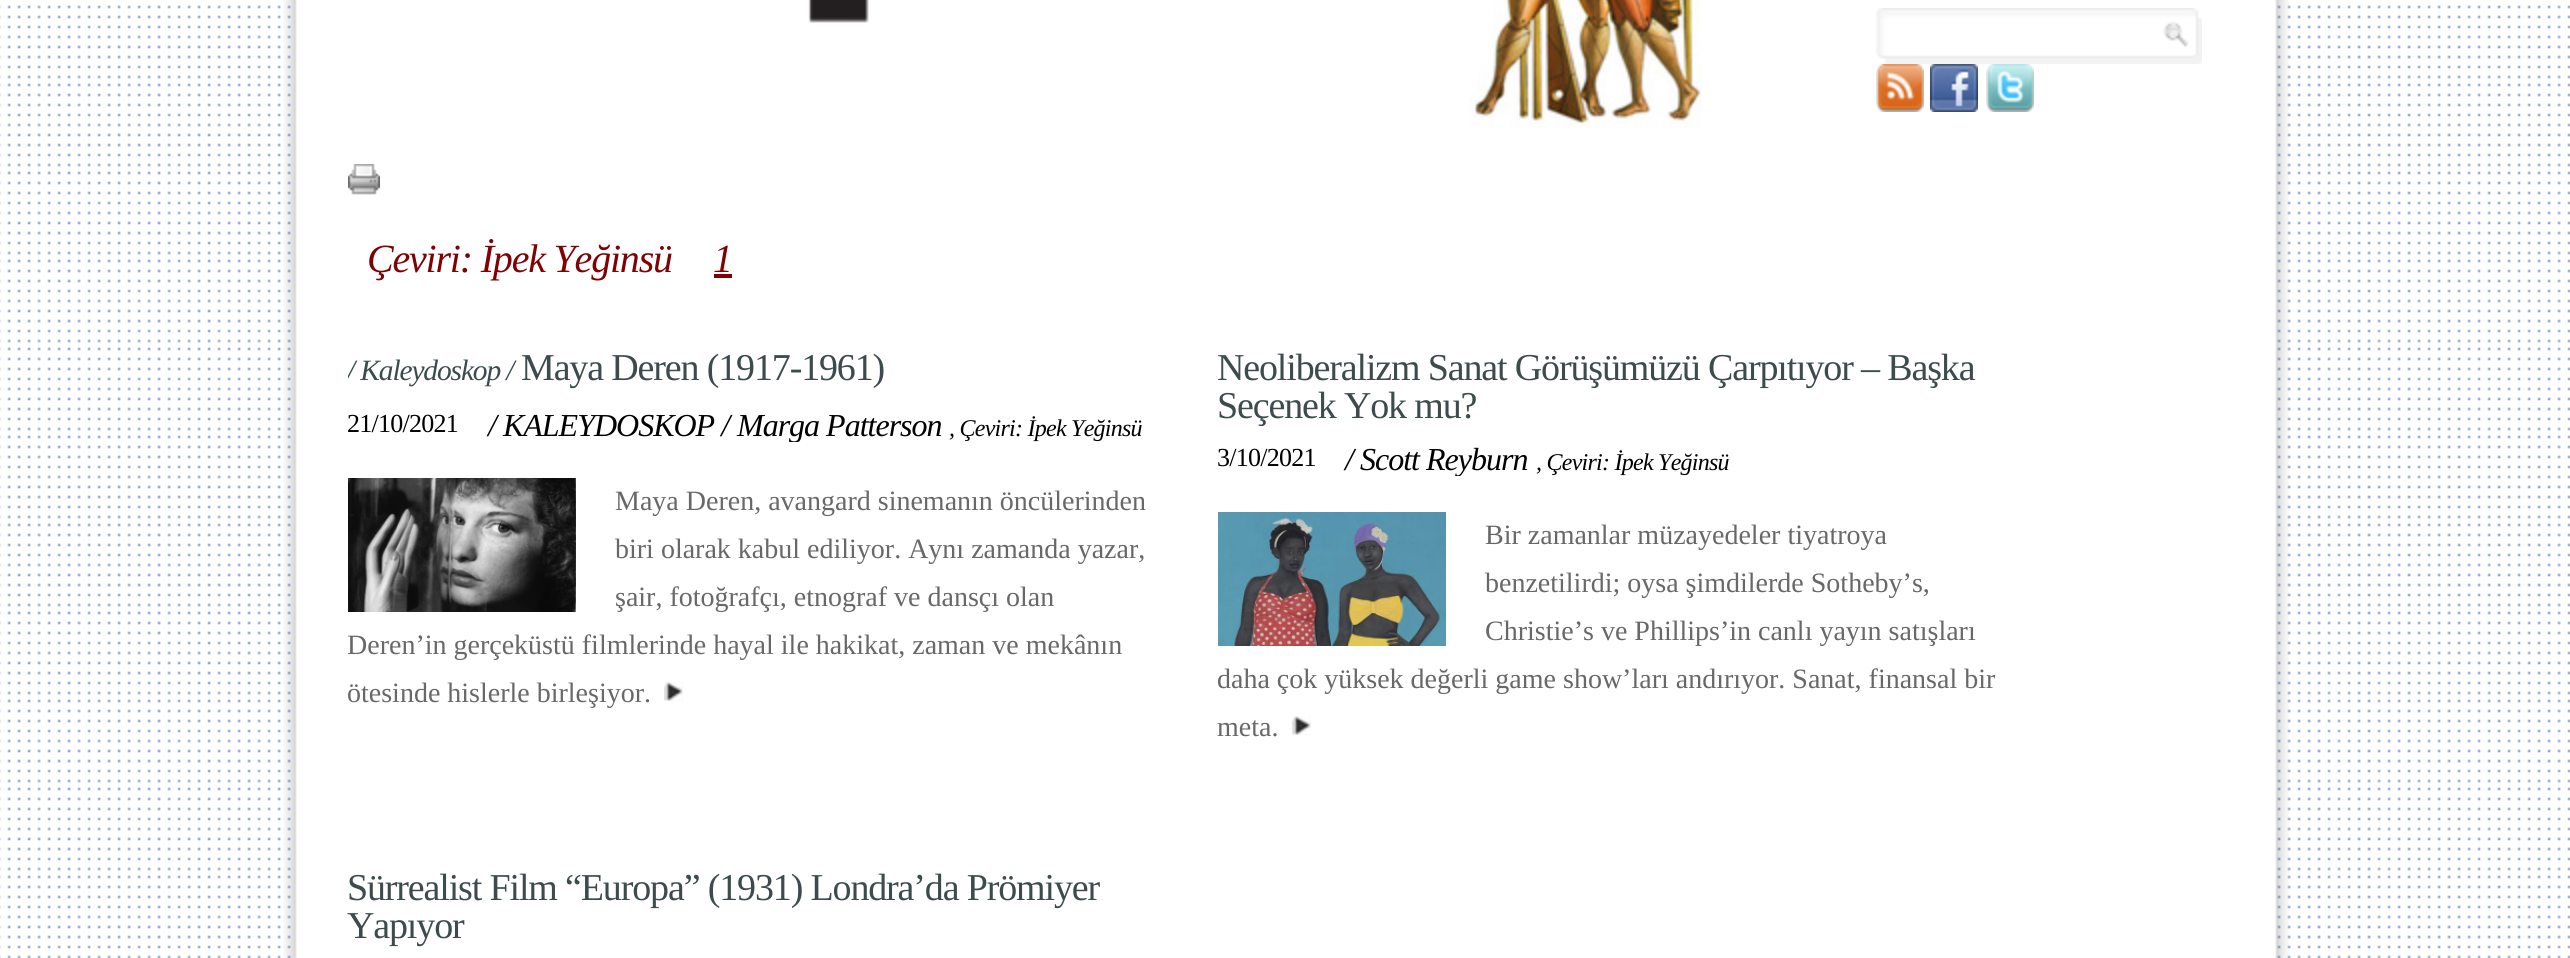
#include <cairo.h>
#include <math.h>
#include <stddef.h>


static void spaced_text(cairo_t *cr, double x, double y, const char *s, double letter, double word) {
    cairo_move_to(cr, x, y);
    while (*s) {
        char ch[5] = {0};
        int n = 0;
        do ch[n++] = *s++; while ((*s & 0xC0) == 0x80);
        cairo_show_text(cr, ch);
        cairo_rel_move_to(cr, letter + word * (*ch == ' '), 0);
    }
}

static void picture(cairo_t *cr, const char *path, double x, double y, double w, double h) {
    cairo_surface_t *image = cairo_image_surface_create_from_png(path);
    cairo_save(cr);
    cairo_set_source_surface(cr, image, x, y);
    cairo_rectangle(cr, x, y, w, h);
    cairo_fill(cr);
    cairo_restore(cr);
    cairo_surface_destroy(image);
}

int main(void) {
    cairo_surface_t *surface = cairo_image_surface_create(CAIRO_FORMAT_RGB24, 2570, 958);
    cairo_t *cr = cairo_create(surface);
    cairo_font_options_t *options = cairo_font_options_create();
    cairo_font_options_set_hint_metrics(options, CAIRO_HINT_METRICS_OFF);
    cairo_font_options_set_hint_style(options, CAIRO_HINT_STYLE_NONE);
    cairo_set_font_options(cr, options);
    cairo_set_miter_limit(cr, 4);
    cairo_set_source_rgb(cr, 1, 1, 1);
    cairo_paint(cr);
    picture(cr, "img1.png", 0, 596, 2570, 362);
    picture(cr, "img2.png", 0, 5, 2570, 591);
    picture(cr, "img3.png", 283, 0, 2006, 958);
    picture(cr, "img4.png", 808, 0, 61, 23);
    picture(cr, "img5.png", 1468, 0, 234, 128);
    picture(cr, "img6.png", 1876, 8, 282, 56);
    picture(cr, "img7.png", 2158, 8, 44, 56);
    picture(cr, "img8.png", 1876, 64, 48, 48);
    picture(cr, "img9.png", 1930, 64, 48, 48);
    picture(cr, "img10.png", 1986, 64, 48, 48);
    picture(cr, "img11.png", 348, 164, 32, 31);
    cairo_select_font_face(cr, "Liberation Serif", CAIRO_FONT_SLANT_ITALIC, CAIRO_FONT_WEIGHT_NORMAL);
    cairo_set_font_size(cr, 40);
    cairo_set_source_rgb(cr, 0.502, 0, 0.012);
    spaced_text(cr, 367, 272, "Çeviri: İpek Yeğinsü", -1.2, 0);
    spaced_text(cr, 713, 272, "1", -1.2, 0);
    cairo_rectangle(cr, 714, 274, 18, 4);
    cairo_fill(cr);
    cairo_save(cr);
    cairo_rectangle(cr, 348, 348, 870, 520);
    cairo_clip(cr);
    cairo_set_font_size(cr, 29.5);
    cairo_set_source_rgb(cr, 0.243, 0.294, 0.302);
    spaced_text(cr, 347, 380, "/ Kaleydoskop /", -1.15, 0);
    cairo_restore(cr);
    cairo_select_font_face(cr, "Liberation Serif", CAIRO_FONT_SLANT_NORMAL, CAIRO_FONT_WEIGHT_NORMAL);
    cairo_set_font_size(cr, 38);
    cairo_set_source_rgb(cr, 0.243, 0.294, 0.302);
    spaced_text(cr, 521, 380, "Maya Deren (1917-1961)", -1.15, 0);
    cairo_set_font_size(cr, 26);
    cairo_set_source_rgb(cr, 0, 0, 0);
    spaced_text(cr, 347, 432, "21/10/2021", -0.75, 0);
    cairo_select_font_face(cr, "Liberation Serif", CAIRO_FONT_SLANT_ITALIC, CAIRO_FONT_WEIGHT_NORMAL);
    cairo_set_font_size(cr, 32);
    spaced_text(cr, 488, 436, "/ KALEYDOSKOP /", -1, 0);
    cairo_save(cr);
    cairo_rectangle(cr, 348, 410, 820, 32);
    cairo_clip(cr);
    spaced_text(cr, 737, 436, "Marga Patterson", -1, 0);
    cairo_restore(cr);
    cairo_set_font_size(cr, 24);
    spaced_text(cr, 949, 436, ", Çeviri: İpek Yeğinsü", -0.75, 0);
    picture(cr, "img12.png", 348, 478, 228, 134);
    cairo_select_font_face(cr, "Liberation Serif", CAIRO_FONT_SLANT_NORMAL, CAIRO_FONT_WEIGHT_NORMAL);
    cairo_set_font_size(cr, 28);
    cairo_set_source_rgb(cr, 0.408, 0.408, 0.408);
    cairo_move_to(cr, 615, 510);
    cairo_show_text(cr, "Maya Deren, avangard sinemanın öncülerinden");
    cairo_move_to(cr, 615, 558);
    cairo_show_text(cr, "biri olarak kabul ediliyor. Aynı zamanda yazar,");
    cairo_move_to(cr, 615, 606);
    cairo_show_text(cr, "şair, fotoğrafçı, etnograf ve dansçı olan");
    cairo_save(cr);
    cairo_rectangle(cr, 348, 348, 870, 520);
    cairo_clip(cr);
    cairo_move_to(cr, 347, 654);
    cairo_show_text(cr, "Deren’in gerçeküstü filmlerinde hayal ile hakikat, zaman ve mekânın");
    cairo_restore(cr);
    cairo_move_to(cr, 347, 702);
    cairo_show_text(cr, "ötesinde hislerle birleşiyor.");
    picture(cr, "img13.png", 664, 682, 19, 19);
    cairo_set_font_size(cr, 38);
    cairo_set_source_rgb(cr, 0.243, 0.294, 0.302);
    spaced_text(cr, 1217, 380, "Neoliberalizm Sanat Görüşümüzü Çarpıtıyor – Başka", -1.15, 0);
    spaced_text(cr, 1217, 418, "Seçenek Yok mu?", -1.15, 0);
    cairo_set_font_size(cr, 26);
    cairo_set_source_rgb(cr, 0, 0, 0);
    spaced_text(cr, 1217, 466, "3/10/2021", -0.75, 0);
    cairo_select_font_face(cr, "Liberation Serif", CAIRO_FONT_SLANT_ITALIC, CAIRO_FONT_WEIGHT_NORMAL);
    cairo_set_font_size(cr, 32);
    spaced_text(cr, 1345, 470, "/", -1, 0);
    cairo_save(cr);
    cairo_rectangle(cr, 1218, 444, 820, 32);
    cairo_clip(cr);
    spaced_text(cr, 1360, 470, "Scott Reyburn", -1, 0);
    cairo_restore(cr);
    cairo_set_font_size(cr, 24);
    spaced_text(cr, 1536, 470, ", Çeviri: İpek Yeğinsü", -0.75, 0);
    picture(cr, "img14.png", 1218, 512, 228, 134);
    cairo_select_font_face(cr, "Liberation Serif", CAIRO_FONT_SLANT_NORMAL, CAIRO_FONT_WEIGHT_NORMAL);
    cairo_set_font_size(cr, 28);
    cairo_set_source_rgb(cr, 0.408, 0.408, 0.408);
    cairo_move_to(cr, 1485, 544);
    cairo_show_text(cr, "Bir zamanlar müzayedeler tiyatroya");
    cairo_move_to(cr, 1485, 592);
    cairo_show_text(cr, "benzetilirdi; oysa şimdilerde Sotheby’s,");
    cairo_move_to(cr, 1485, 640);
    cairo_show_text(cr, "Christie’s ve Phillips’in canlı yayın satışları");
    cairo_move_to(cr, 1217, 688);
    cairo_show_text(cr, "daha çok yüksek değerli game show’ları andırıyor. Sanat, finansal bir");
    cairo_move_to(cr, 1217, 736);
    cairo_show_text(cr, "meta.");
    picture(cr, "img13.png", 1292, 716, 19, 19);
    cairo_set_font_size(cr, 38);
    cairo_set_source_rgb(cr, 0.243, 0.294, 0.302);
    spaced_text(cr, 347, 900, "Sürrealist Film “Europa” (1931) Londra’da Prömiyer", -1.15, 0);
    spaced_text(cr, 347, 938, "Yapıyor", -1.15, 0);
    cairo_surface_write_to_png(surface, "page.png");
    cairo_font_options_destroy(options);
    cairo_destroy(cr);
    cairo_surface_destroy(surface);
    return 0;
}
